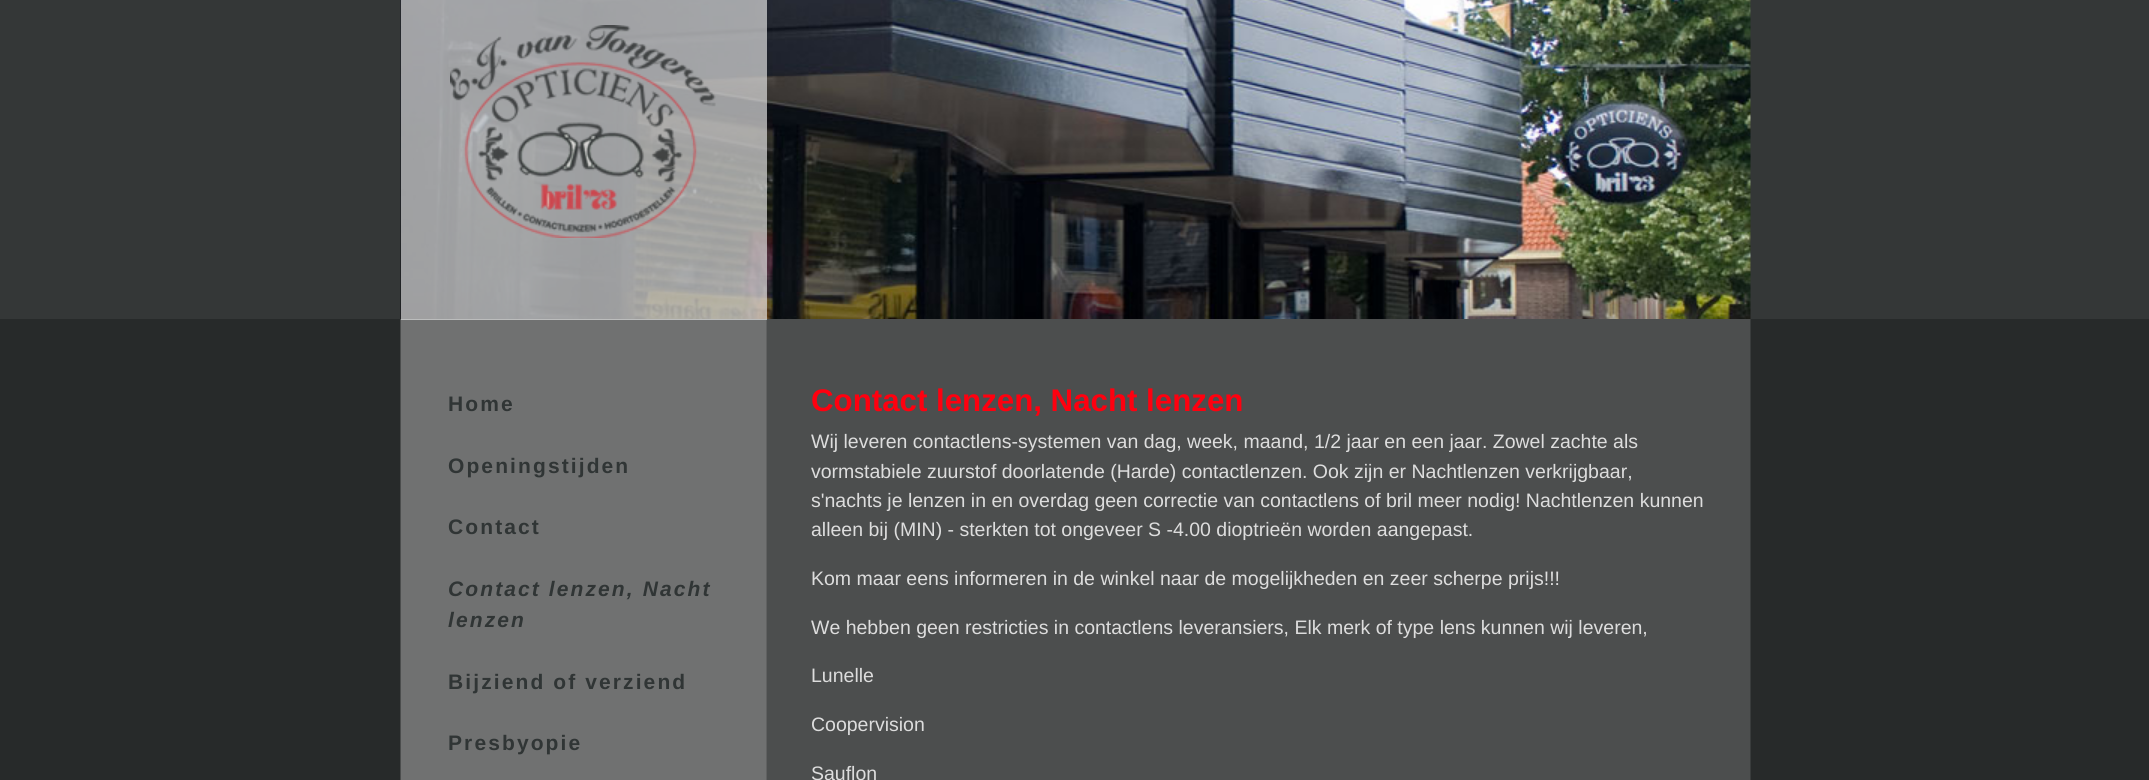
#include <cairo.h>
#include <math.h>
#include <stddef.h>


static void spaced_text(cairo_t *cr, double x, double y, const char *s, double letter, double word) {
    cairo_move_to(cr, x, y);
    while (*s) {
        char ch[5] = {0};
        int n = 0;
        do ch[n++] = *s++; while ((*s & 0xC0) == 0x80);
        cairo_show_text(cr, ch);
        cairo_rel_move_to(cr, letter + word * (*ch == ' '), 0);
    }
}

static void picture(cairo_t *cr, const char *path, double x, double y, double w, double h) {
    cairo_surface_t *image = cairo_image_surface_create_from_png(path);
    cairo_save(cr);
    cairo_set_source_surface(cr, image, x, y);
    cairo_rectangle(cr, x, y, w, h);
    cairo_fill(cr);
    cairo_restore(cr);
    cairo_surface_destroy(image);
}

int main(void) {
    cairo_surface_t *surface = cairo_image_surface_create(CAIRO_FORMAT_RGB24, 2149, 780);
    cairo_t *cr = cairo_create(surface);
    cairo_font_options_t *options = cairo_font_options_create();
    cairo_font_options_set_hint_metrics(options, CAIRO_HINT_METRICS_OFF);
    cairo_font_options_set_hint_style(options, CAIRO_HINT_STYLE_NONE);
    cairo_set_font_options(cr, options);
    cairo_set_miter_limit(cr, 4);
    cairo_set_source_rgb(cr, 0.153, 0.165, 0.165);
    cairo_paint(cr);
    cairo_set_source_rgb(cr, 0.204, 0.216, 0.216);
    cairo_rectangle(cr, 0, 0, 2149, 319);
    cairo_fill(cr);
    picture(cr, "img1.png", 400, 0, 1351, 319);
    picture(cr, "img3.png", 400, 319, 1351, 461);
    cairo_set_source_rgba(cr, 0.867, 0.867, 0.867, 0.7);
    cairo_rectangle(cr, 401, 0, 366, 320);
    cairo_fill(cr);
    picture(cr, "img2.png", 450, 25, 266, 213);
    cairo_select_font_face(cr, "Liberation Sans", CAIRO_FONT_SLANT_NORMAL, CAIRO_FONT_WEIGHT_BOLD);
    cairo_set_font_size(cr, 21);
    cairo_set_source_rgb(cr, 0.188, 0.208, 0.208);
    spaced_text(cr, 448, 411, "Home", 2.1, 0);
    spaced_text(cr, 448, 473, "Openingstijden", 2.1, 0);
    spaced_text(cr, 448, 534, "Contact", 2.1, 0);
    cairo_select_font_face(cr, "Liberation Sans", CAIRO_FONT_SLANT_ITALIC, CAIRO_FONT_WEIGHT_BOLD);
    spaced_text(cr, 448, 596, "Contact lenzen, Nacht", 2.1, 0);
    spaced_text(cr, 448, 627, "lenzen", 2.1, 0);
    cairo_select_font_face(cr, "Liberation Sans", CAIRO_FONT_SLANT_NORMAL, CAIRO_FONT_WEIGHT_BOLD);
    spaced_text(cr, 448, 689, "Bijziend of verziend", 2.1, 0);
    spaced_text(cr, 448, 750, "Presbyopie", 2.1, 0);
    cairo_set_font_size(cr, 31.25);
    cairo_set_source_rgb(cr, 1, 0, 0.059);
    cairo_move_to(cr, 811, 411);
    cairo_show_text(cr, "Contact lenzen, Nacht lenzen");
    cairo_select_font_face(cr, "Liberation Sans", CAIRO_FONT_SLANT_NORMAL, CAIRO_FONT_WEIGHT_NORMAL);
    cairo_set_font_size(cr, 19.5);
    cairo_set_source_rgb(cr, 0.867, 0.867, 0.867);
    cairo_move_to(cr, 811, 448);
    cairo_show_text(cr, "Wij leveren contactlens-systemen van dag, week, maand, 1/2 jaar en een jaar. Zowel zachte als");
    cairo_move_to(cr, 811, 478);
    cairo_show_text(cr, "vormstabiele zuurstof doorlatende (Harde) contactlenzen. Ook zijn er Nachtlenzen verkrijgbaar,");
    cairo_move_to(cr, 811, 507);
    cairo_show_text(cr, "s'nachts je lenzen in en overdag geen correctie van contactlens of bril meer nodig! Nachtlenzen kunnen");
    cairo_move_to(cr, 811, 536);
    cairo_show_text(cr, "alleen bij (MIN) - sterkten tot ongeveer S -4.00 dioptrieën worden aangepast.");
    cairo_move_to(cr, 811, 585);
    cairo_show_text(cr, "Kom maar eens informeren in de winkel naar de mogelijkheden en zeer scherpe prijs!!!");
    cairo_move_to(cr, 811, 634);
    cairo_show_text(cr, "We hebben geen restricties in contactlens leveransiers, Elk merk of type lens kunnen wij leveren,");
    cairo_move_to(cr, 811, 682);
    cairo_show_text(cr, "Lunelle");
    cairo_move_to(cr, 811, 731);
    cairo_show_text(cr, "Coopervision");
    cairo_move_to(cr, 811, 780);
    cairo_show_text(cr, "Sauflon");
    cairo_surface_write_to_png(surface, "page.png");
    cairo_font_options_destroy(options);
    cairo_destroy(cr);
    cairo_surface_destroy(surface);
    return 0;
}
